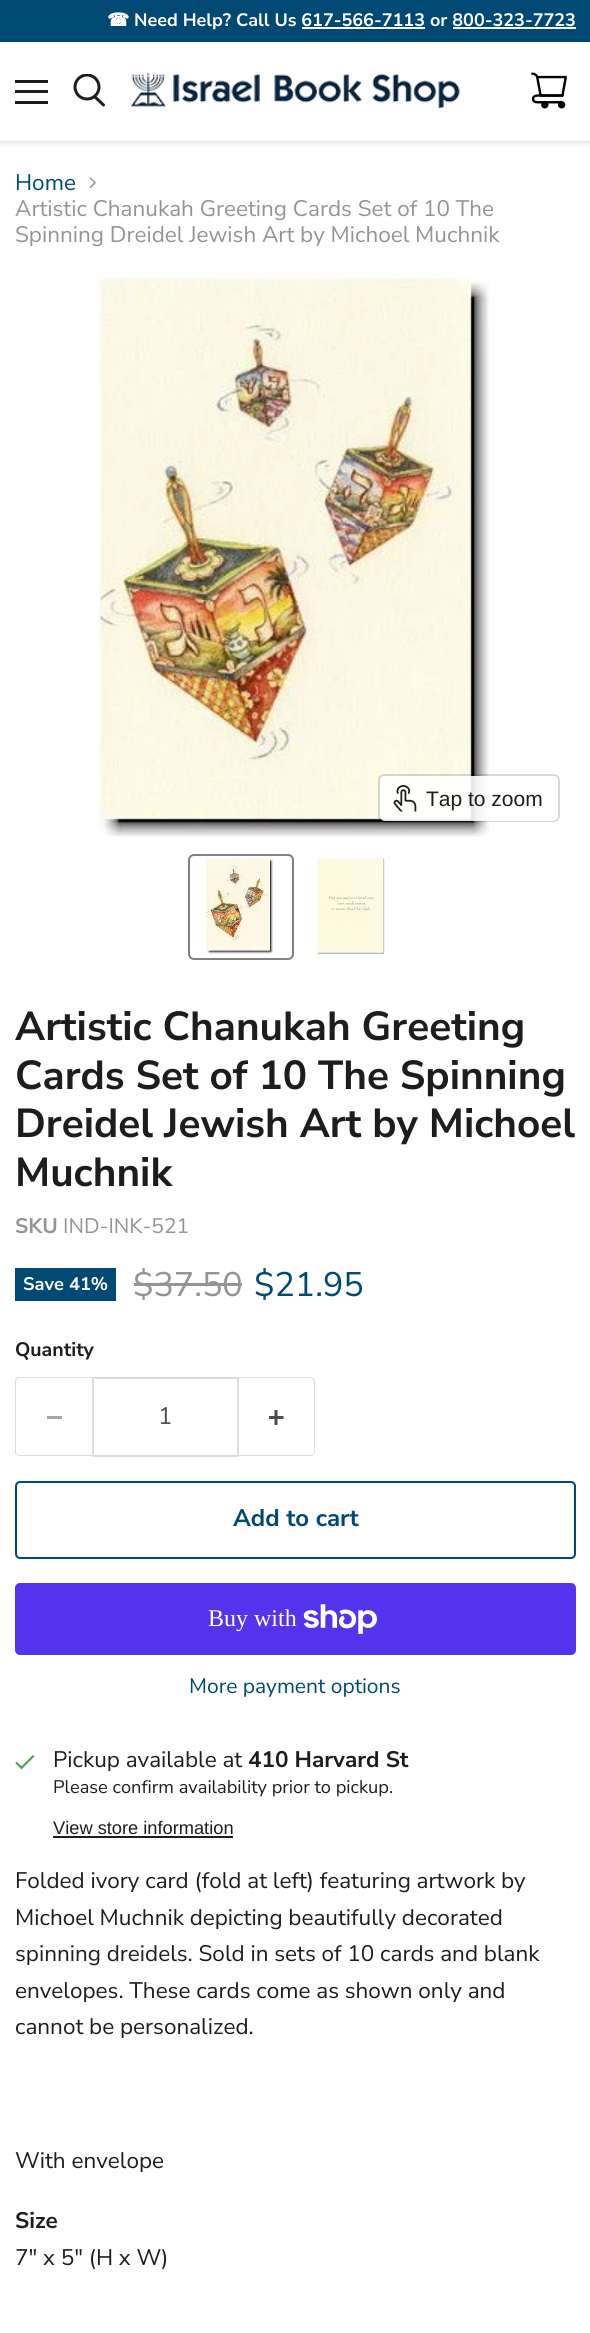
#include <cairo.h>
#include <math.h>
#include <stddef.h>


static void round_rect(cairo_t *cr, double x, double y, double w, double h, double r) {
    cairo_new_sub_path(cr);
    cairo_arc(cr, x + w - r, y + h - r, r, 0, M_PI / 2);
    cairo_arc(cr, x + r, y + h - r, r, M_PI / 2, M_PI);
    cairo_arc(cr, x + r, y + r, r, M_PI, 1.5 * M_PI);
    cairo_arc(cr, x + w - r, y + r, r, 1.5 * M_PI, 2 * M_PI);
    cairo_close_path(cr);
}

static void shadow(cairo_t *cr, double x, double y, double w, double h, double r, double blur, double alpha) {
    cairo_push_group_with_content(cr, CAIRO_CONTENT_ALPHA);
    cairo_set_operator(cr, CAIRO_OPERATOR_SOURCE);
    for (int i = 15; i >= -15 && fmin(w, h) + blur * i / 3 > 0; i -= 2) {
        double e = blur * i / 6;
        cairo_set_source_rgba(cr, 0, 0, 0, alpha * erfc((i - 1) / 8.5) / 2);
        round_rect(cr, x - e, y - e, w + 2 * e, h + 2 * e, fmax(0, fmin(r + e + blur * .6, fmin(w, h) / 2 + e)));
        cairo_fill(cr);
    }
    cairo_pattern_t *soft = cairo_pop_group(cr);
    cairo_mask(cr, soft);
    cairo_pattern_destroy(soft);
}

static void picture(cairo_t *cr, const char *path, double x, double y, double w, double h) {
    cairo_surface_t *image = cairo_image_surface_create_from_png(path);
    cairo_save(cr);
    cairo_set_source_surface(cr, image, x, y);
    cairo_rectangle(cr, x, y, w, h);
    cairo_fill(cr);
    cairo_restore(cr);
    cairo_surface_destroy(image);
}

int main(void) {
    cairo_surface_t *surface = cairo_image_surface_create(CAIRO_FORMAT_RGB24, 590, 2333);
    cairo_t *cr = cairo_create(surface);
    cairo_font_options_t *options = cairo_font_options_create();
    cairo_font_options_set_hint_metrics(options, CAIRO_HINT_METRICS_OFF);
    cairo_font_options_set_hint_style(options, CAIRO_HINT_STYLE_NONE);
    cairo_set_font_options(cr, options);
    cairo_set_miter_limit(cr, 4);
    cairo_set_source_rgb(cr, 1, 1, 1);
    cairo_paint(cr);
    cairo_save(cr);
    cairo_rectangle(cr, 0, 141, 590, 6);
    cairo_clip(cr);
    cairo_set_source_rgb(cr, 0.502, 0.502, 0.502);
    shadow(cr, 0, 44, 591, 99, 0, 3, 0.25);
    cairo_restore(cr);
    cairo_set_source_rgb(cr, 0, 0.286, 0.455);
    cairo_rectangle(cr, 0, 0, 590, 42);
    cairo_fill(cr);
    cairo_select_font_face(cr, "DejaVu Sans", CAIRO_FONT_SLANT_NORMAL, CAIRO_FONT_WEIGHT_BOLD);
    cairo_set_font_size(cr, 18);
    cairo_set_source_rgb(cr, 1, 1, 1);
    cairo_move_to(cr, 107, 26);
    cairo_show_text(cr, "☎");
    cairo_select_font_face(cr, "Nunito Sans", CAIRO_FONT_SLANT_NORMAL, CAIRO_FONT_WEIGHT_BOLD);
    cairo_move_to(cr, 134, 26);
    cairo_show_text(cr, "Need Help? Call Us 617-566-7113");
    cairo_move_to(cr, 430, 26);
    cairo_show_text(cr, "or 800-323-7723");
    cairo_rectangle(cr, 302, 27, 123, 2);
    cairo_fill(cr);
    cairo_rectangle(cr, 453, 27, 123, 2);
    cairo_fill(cr);
    cairo_set_source_rgb(cr, 0.114, 0.114, 0.114);
    cairo_rectangle(cr, 15, 80, 33, 3);
    cairo_fill(cr);
    cairo_rectangle(cr, 15, 90, 33, 3);
    cairo_fill(cr);
    cairo_rectangle(cr, 15, 101, 33, 3);
    cairo_fill(cr);
    cairo_new_path(cr);
    cairo_move_to(cr, 103.5, 105);
    cairo_line_to(cr, 95, 97);
    cairo_set_line_width(cr, 3);
    cairo_set_line_cap(cr, CAIRO_LINE_CAP_ROUND);
    cairo_stroke(cr);
    cairo_save(cr);
    cairo_rectangle(cr, 72, 74, 35, 36);
    cairo_clip(cr);
    cairo_arc(cr, 87, 87, 12, 0, 2 * M_PI);
    cairo_set_line_cap(cr, CAIRO_LINE_CAP_BUTT);
    cairo_stroke(cr);
    cairo_restore(cr);
    picture(cr, "img1.png", 130, 73, 330, 35);
    picture(cr, "img2.png", 531, 72, 36, 37);
    cairo_select_font_face(cr, "Nunito Sans", CAIRO_FONT_SLANT_NORMAL, CAIRO_FONT_WEIGHT_NORMAL);
    cairo_set_font_size(cr, 22.5);
    cairo_set_source_rgb(cr, 0, 0.286, 0.455);
    cairo_move_to(cr, 15, 190);
    cairo_show_text(cr, "Home");
    picture(cr, "img3.png", 89, 177, 7, 12);
    cairo_set_source_rgb(cr, 0.58, 0.58, 0.58);
    cairo_move_to(cr, 15, 216);
    cairo_show_text(cr, "Artistic Chanukah Greeting Cards Set of 10 The");
    cairo_move_to(cr, 15, 242);
    cairo_show_text(cr, "Spinning Dreidel Jewish Art by Michoel Muchnik");
    picture(cr, "img4.png", 97, 277, 393, 560);
    round_rect(cr, 379, 775, 180, 46, 5);
    cairo_set_source_rgba(cr, 0, 0, 0, 0.15);
    cairo_set_line_width(cr, 2);
    cairo_set_line_cap(cr, CAIRO_LINE_CAP_BUTT);
    cairo_stroke(cr);
    cairo_set_source_rgba(cr, 1, 1, 1, 0.9);
    round_rect(cr, 380, 776, 178, 45, 5);
    cairo_fill(cr);
    picture(cr, "img5.png", 393, 785, 24, 27);
    cairo_select_font_face(cr, "Liberation Sans", CAIRO_FONT_SLANT_NORMAL, CAIRO_FONT_WEIGHT_NORMAL);
    cairo_set_font_size(cr, 21);
    cairo_set_source_rgb(cr, 0.114, 0.114, 0.114);
    cairo_move_to(cr, 426, 806);
    cairo_show_text(cr, "Tap to zoom");
    round_rect(cr, 189, 855, 104, 104, 5);
    cairo_set_source_rgb(cr, 0.506, 0.506, 0.506);
    cairo_stroke(cr);
    picture(cr, "img6.png", 205, 858, 68, 96);
    picture(cr, "img7.png", 317, 858, 68, 96);
    cairo_select_font_face(cr, "Nunito Sans", CAIRO_FONT_SLANT_NORMAL, CAIRO_FONT_WEIGHT_BOLD);
    cairo_set_font_size(cr, 40.5);
    cairo_set_source_rgb(cr, 0.114, 0.114, 0.114);
    cairo_move_to(cr, 15, 1040);
    cairo_show_text(cr, "Artistic Chanukah Greeting");
    cairo_move_to(cr, 15, 1089);
    cairo_show_text(cr, "Cards Set of 10 The Spinning");
    cairo_move_to(cr, 15, 1137);
    cairo_show_text(cr, "Dreidel Jewish Art by Michoel");
    cairo_move_to(cr, 15, 1186);
    cairo_show_text(cr, "Muchnik");
    cairo_set_font_size(cr, 21);
    cairo_set_source_rgb(cr, 0.58, 0.58, 0.58);
    cairo_move_to(cr, 15, 1233);
    cairo_show_text(cr, "SKU");
    cairo_select_font_face(cr, "Nunito Sans", CAIRO_FONT_SLANT_NORMAL, CAIRO_FONT_WEIGHT_NORMAL);
    cairo_move_to(cr, 63, 1233);
    cairo_show_text(cr, "IND-INK-521");
    cairo_set_source_rgb(cr, 0, 0.286, 0.455);
    cairo_rectangle(cr, 15, 1268, 101, 33);
    cairo_fill(cr);
    cairo_select_font_face(cr, "Nunito Sans", CAIRO_FONT_SLANT_NORMAL, CAIRO_FONT_WEIGHT_BOLD);
    cairo_set_font_size(cr, 18.25);
    cairo_set_source_rgb(cr, 1, 1, 1);
    cairo_move_to(cr, 23, 1290);
    cairo_show_text(cr, "Save 41%");
    cairo_select_font_face(cr, "Nunito Sans", CAIRO_FONT_SLANT_NORMAL, CAIRO_FONT_WEIGHT_NORMAL);
    cairo_set_font_size(cr, 34);
    cairo_set_source_rgb(cr, 0.58, 0.58, 0.58);
    cairo_move_to(cr, 133, 1296);
    cairo_show_text(cr, "$37.50");
    cairo_rectangle(cr, 134, 1283, 108, 3);
    cairo_fill(cr);
    cairo_set_source_rgb(cr, 0, 0.286, 0.455);
    cairo_move_to(cr, 254, 1296);
    cairo_show_text(cr, "$21.95");
    cairo_select_font_face(cr, "Nunito Sans", CAIRO_FONT_SLANT_NORMAL, CAIRO_FONT_WEIGHT_BOLD);
    cairo_set_font_size(cr, 19.5);
    cairo_set_source_rgb(cr, 0.114, 0.114, 0.114);
    cairo_move_to(cr, 15, 1356);
    cairo_show_text(cr, "Quantity");
    cairo_set_source_rgb(cr, 0.867, 0.867, 0.867);
    cairo_set_fill_rule(cr, CAIRO_FILL_RULE_EVEN_ODD);
    cairo_new_path(cr);
    cairo_move_to(cr, 20, 1377);
    cairo_line_to(cr, 92, 1377);
    cairo_line_to(cr, 92, 1456);
    cairo_line_to(cr, 20, 1456);
    cairo_curve_to(cr, 17, 1456, 15, 1454, 15, 1452);
    cairo_line_to(cr, 15, 1382);
    cairo_curve_to(cr, 15, 1379, 17, 1377, 20, 1377);
    cairo_close_path(cr);
    cairo_move_to(cr, 20, 1378);
    cairo_line_to(cr, 92, 1378);
    cairo_line_to(cr, 92, 1455);
    cairo_line_to(cr, 20, 1455);
    cairo_curve_to(cr, 18, 1455, 16, 1454, 16, 1452);
    cairo_line_to(cr, 16, 1382);
    cairo_curve_to(cr, 16, 1380, 18, 1378, 20, 1378);
    cairo_close_path(cr);
    cairo_fill(cr);
    cairo_set_source_rgb(cr, 0.651, 0.651, 0.651);
    cairo_rectangle(cr, 47, 1416, 15, 3);
    cairo_fill(cr);
    cairo_rectangle(cr, 93, 1378, 145, 78);
    cairo_set_source_rgb(cr, 0.867, 0.867, 0.867);
    cairo_stroke(cr);
    cairo_select_font_face(cr, "Nunito Sans", CAIRO_FONT_SLANT_NORMAL, CAIRO_FONT_WEIGHT_NORMAL);
    cairo_set_font_size(cr, 24);
    cairo_set_source_rgb(cr, 0.302, 0.302, 0.302);
    cairo_move_to(cr, 158, 1424);
    cairo_show_text(cr, "1");
    cairo_set_source_rgb(cr, 0.867, 0.867, 0.867);
    cairo_new_path(cr);
    cairo_move_to(cr, 238, 1377);
    cairo_line_to(cr, 310, 1377);
    cairo_curve_to(cr, 313, 1377, 315, 1379, 315, 1382);
    cairo_line_to(cr, 315, 1452);
    cairo_curve_to(cr, 315, 1454, 313, 1456, 310, 1456);
    cairo_line_to(cr, 238, 1456);
    cairo_close_path(cr);
    cairo_move_to(cr, 238, 1378);
    cairo_line_to(cr, 310, 1378);
    cairo_curve_to(cr, 312, 1378, 314, 1380, 314, 1382);
    cairo_line_to(cr, 314, 1452);
    cairo_curve_to(cr, 314, 1454, 312, 1455, 310, 1455);
    cairo_line_to(cr, 238, 1455);
    cairo_close_path(cr);
    cairo_fill(cr);
    picture(cr, "img8.png", 269, 1410, 15, 15);
    round_rect(cr, 16, 1482, 559, 76, 4);
    cairo_set_source_rgb(cr, 0, 0.286, 0.455);
    cairo_stroke(cr);
    cairo_select_font_face(cr, "Nunito Sans", CAIRO_FONT_SLANT_NORMAL, CAIRO_FONT_WEIGHT_BOLD);
    cairo_move_to(cr, 233, 1526);
    cairo_show_text(cr, "Add to cart");
    cairo_set_source_rgb(cr, 0.329, 0.2, 0.922);
    round_rect(cr, 15, 1583, 561, 72, 5);
    cairo_fill(cr);
    cairo_select_font_face(cr, "Liberation Serif", CAIRO_FONT_SLANT_NORMAL, CAIRO_FONT_WEIGHT_NORMAL);
    cairo_set_source_rgb(cr, 1, 1, 1);
    cairo_move_to(cr, 208, 1626);
    cairo_show_text(cr, "Buy with");
    picture(cr, "img9.png", 303, 1604, 74, 30);
    cairo_select_font_face(cr, "Nunito Sans", CAIRO_FONT_SLANT_NORMAL, CAIRO_FONT_WEIGHT_NORMAL);
    cairo_set_font_size(cr, 21);
    cairo_set_source_rgb(cr, 0, 0.286, 0.455);
    cairo_move_to(cr, 189, 1693);
    cairo_show_text(cr, "More payment options");
    picture(cr, "img10.png", 15, 1755, 20, 15);
    cairo_set_font_size(cr, 22.5);
    cairo_set_source_rgb(cr, 0.114, 0.114, 0.114);
    cairo_move_to(cr, 53, 1767);
    cairo_show_text(cr, "Pickup available at");
    cairo_select_font_face(cr, "Nunito Sans", CAIRO_FONT_SLANT_NORMAL, CAIRO_FONT_WEIGHT_BOLD);
    cairo_move_to(cr, 248, 1767);
    cairo_show_text(cr, "410 Harvard St");
    cairo_select_font_face(cr, "Nunito Sans", CAIRO_FONT_SLANT_NORMAL, CAIRO_FONT_WEIGHT_NORMAL);
    cairo_set_font_size(cr, 18.25);
    cairo_move_to(cr, 53, 1793);
    cairo_show_text(cr, "Please confirm availability prior to pickup.");
    cairo_select_font_face(cr, "Liberation Sans", CAIRO_FONT_SLANT_NORMAL, CAIRO_FONT_WEIGHT_NORMAL);
    cairo_move_to(cr, 53, 1834);
    cairo_show_text(cr, "View store information");
    cairo_rectangle(cr, 53, 1836, 180, 2);
    cairo_fill(cr);
    cairo_select_font_face(cr, "Nunito Sans", CAIRO_FONT_SLANT_NORMAL, CAIRO_FONT_WEIGHT_NORMAL);
    cairo_set_font_size(cr, 22.5);
    cairo_move_to(cr, 15, 1888);
    cairo_show_text(cr, "Folded ivory card (fold at left) featuring artwork by");
    cairo_move_to(cr, 15, 1925);
    cairo_show_text(cr, "Michoel Muchnik depicting beautifully decorated");
    cairo_move_to(cr, 15, 1961);
    cairo_show_text(cr, "spinning dreidels. Sold in sets of 10 cards and blank");
    cairo_move_to(cr, 15, 1998);
    cairo_show_text(cr, "envelopes. These cards come as shown only and");
    cairo_move_to(cr, 15, 2034);
    cairo_show_text(cr, "cannot be personalized.");
    cairo_move_to(cr, 15, 2168);
    cairo_show_text(cr, "With envelope");
    cairo_select_font_face(cr, "Nunito Sans", CAIRO_FONT_SLANT_NORMAL, CAIRO_FONT_WEIGHT_BOLD);
    cairo_move_to(cr, 15, 2228);
    cairo_show_text(cr, "Size");
    cairo_select_font_face(cr, "Nunito Sans", CAIRO_FONT_SLANT_NORMAL, CAIRO_FONT_WEIGHT_NORMAL);
    cairo_move_to(cr, 15, 2265);
    cairo_show_text(cr, "7\" x 5\" (H x W)");
    cairo_surface_write_to_png(surface, "page.png");
    cairo_font_options_destroy(options);
    cairo_destroy(cr);
    cairo_surface_destroy(surface);
    return 0;
}
